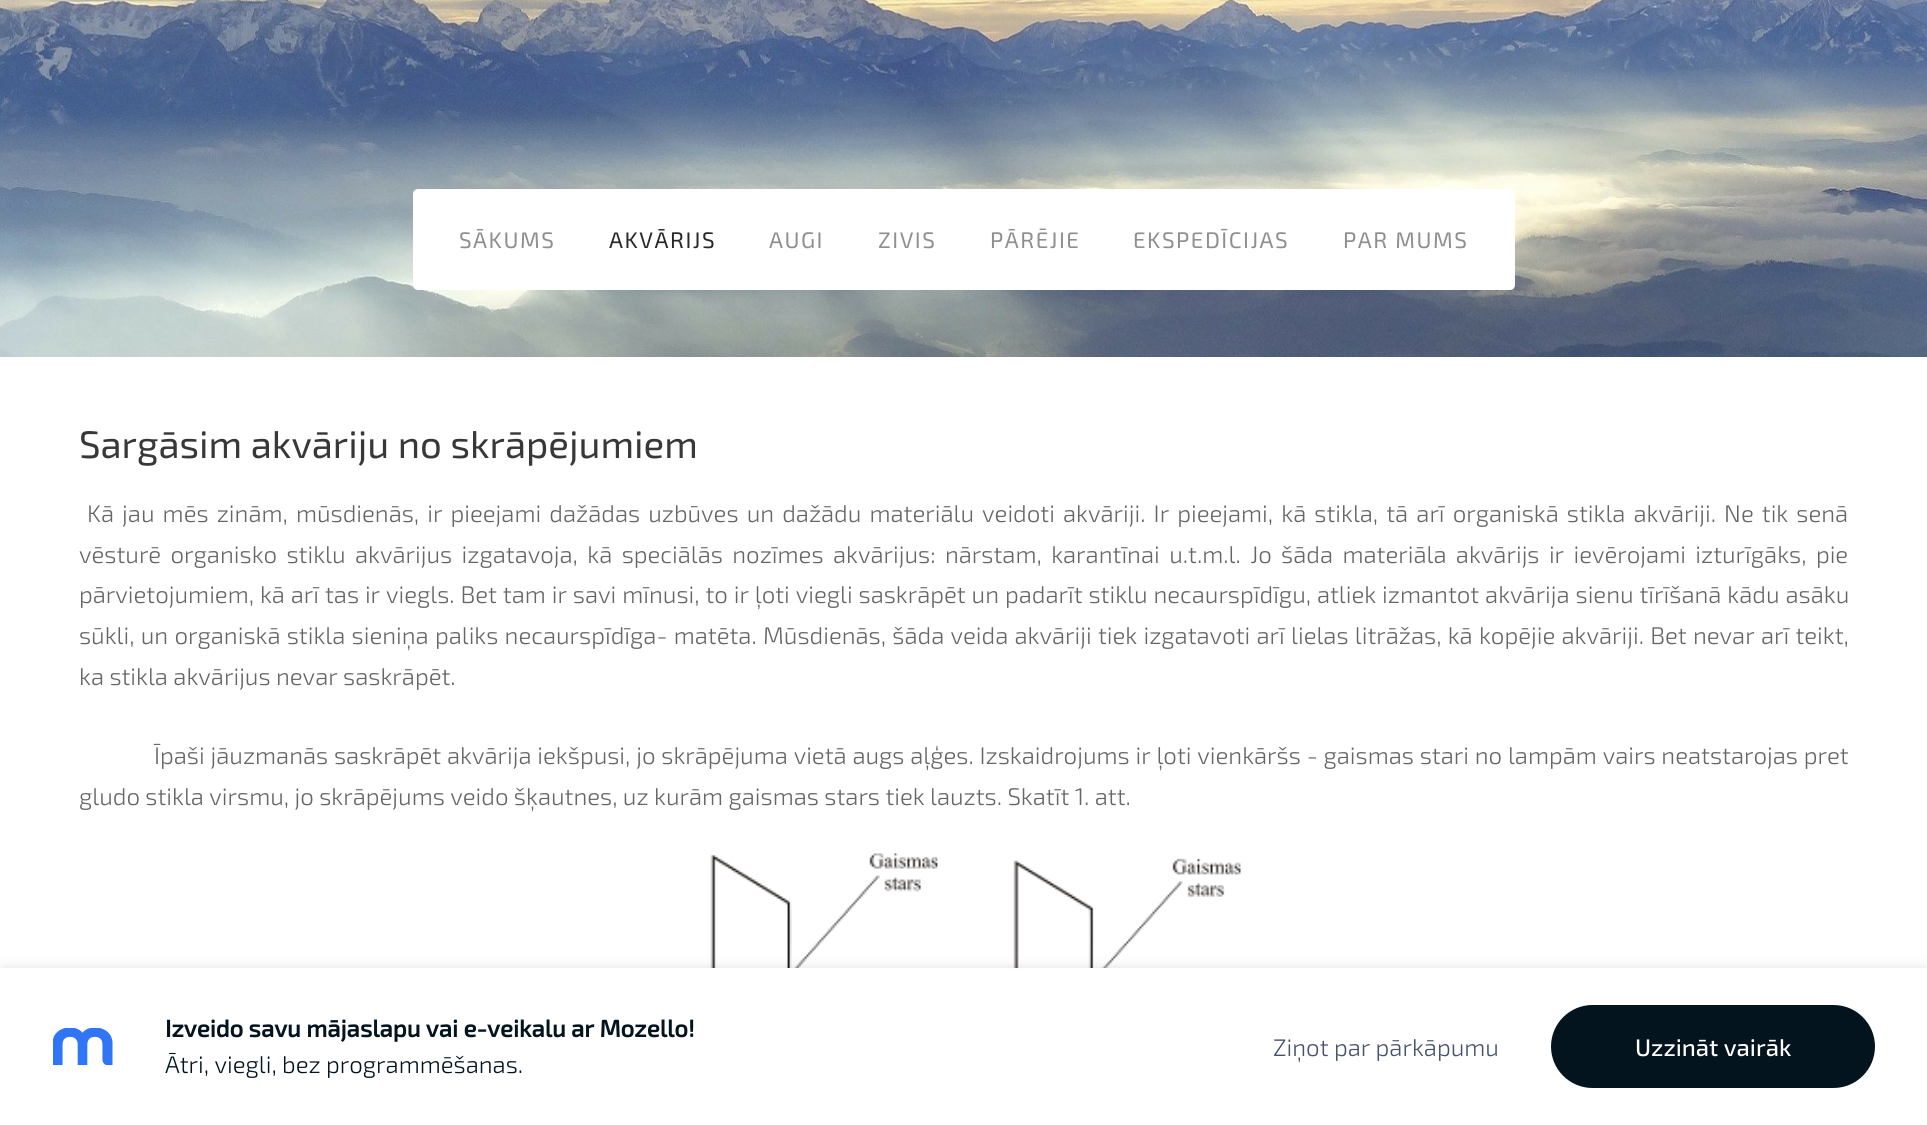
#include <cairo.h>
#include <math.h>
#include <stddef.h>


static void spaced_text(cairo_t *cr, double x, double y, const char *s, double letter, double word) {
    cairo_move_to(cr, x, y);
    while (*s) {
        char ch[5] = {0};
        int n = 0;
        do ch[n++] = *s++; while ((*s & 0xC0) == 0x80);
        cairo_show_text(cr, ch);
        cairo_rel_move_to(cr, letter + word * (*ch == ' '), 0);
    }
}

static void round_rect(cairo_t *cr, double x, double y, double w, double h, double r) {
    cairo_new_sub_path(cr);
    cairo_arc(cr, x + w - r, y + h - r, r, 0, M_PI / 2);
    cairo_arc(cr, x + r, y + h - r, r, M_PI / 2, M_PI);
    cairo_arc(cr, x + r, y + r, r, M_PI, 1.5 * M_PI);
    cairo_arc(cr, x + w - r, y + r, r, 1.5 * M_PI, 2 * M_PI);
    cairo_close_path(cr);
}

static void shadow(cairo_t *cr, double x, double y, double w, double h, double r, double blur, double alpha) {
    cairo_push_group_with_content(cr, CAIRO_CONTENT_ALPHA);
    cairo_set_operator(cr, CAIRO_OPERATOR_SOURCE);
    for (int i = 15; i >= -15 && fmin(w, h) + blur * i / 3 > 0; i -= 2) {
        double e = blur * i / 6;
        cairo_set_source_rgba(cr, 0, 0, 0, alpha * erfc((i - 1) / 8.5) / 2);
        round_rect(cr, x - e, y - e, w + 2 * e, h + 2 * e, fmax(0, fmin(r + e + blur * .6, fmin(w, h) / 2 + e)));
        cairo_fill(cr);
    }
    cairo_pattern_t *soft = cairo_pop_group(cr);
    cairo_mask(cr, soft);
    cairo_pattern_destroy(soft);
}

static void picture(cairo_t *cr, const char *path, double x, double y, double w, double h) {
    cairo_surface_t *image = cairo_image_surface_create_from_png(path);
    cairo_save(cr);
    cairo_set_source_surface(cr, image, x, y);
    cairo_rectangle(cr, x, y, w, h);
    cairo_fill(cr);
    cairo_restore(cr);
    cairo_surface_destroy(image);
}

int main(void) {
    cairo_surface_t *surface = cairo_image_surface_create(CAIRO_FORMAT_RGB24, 1927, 1125);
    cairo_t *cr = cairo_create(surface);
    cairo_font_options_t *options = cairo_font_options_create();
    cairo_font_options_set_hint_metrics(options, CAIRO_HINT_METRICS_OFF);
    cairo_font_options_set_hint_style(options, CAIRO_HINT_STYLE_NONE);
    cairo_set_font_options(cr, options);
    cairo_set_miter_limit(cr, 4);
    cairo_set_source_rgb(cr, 1, 1, 1);
    cairo_paint(cr);
    picture(cr, "img1.png", 0, 0, 1927, 357);
    cairo_set_source_rgb(cr, 1, 1, 1);
    round_rect(cr, 413, 189, 1102, 101, 5);
    cairo_fill(cr);
    cairo_select_font_face(cr, "Exo 2", CAIRO_FONT_SLANT_NORMAL, CAIRO_FONT_WEIGHT_NORMAL);
    cairo_set_font_size(cr, 22.5);
    cairo_set_source_rgb(cr, 0.561, 0.561, 0.561);
    spaced_text(cr, 459, 248, "SĀKUMS", 1.5, 0);
    cairo_set_source_rgb(cr, 0.161, 0.161, 0.161);
    spaced_text(cr, 609, 248, "AKVĀRIJS", 1.5, 0);
    cairo_set_source_rgb(cr, 0.561, 0.561, 0.561);
    spaced_text(cr, 769, 248, "AUGI", 1.5, 0);
    spaced_text(cr, 878, 248, "ZIVIS", 1.5, 0);
    spaced_text(cr, 990, 248, "PĀRĒJIE", 1.5, 0);
    spaced_text(cr, 1133, 248, "EKSPEDĪCIJAS", 1.5, 0);
    spaced_text(cr, 1343, 248, "PAR MUMS", 1.5, 0);
    cairo_set_font_size(cr, 38.4);
    cairo_set_source_rgb(cr, 0.22, 0.22, 0.22);
    cairo_move_to(cr, 79, 458);
    cairo_show_text(cr, "Sargāsim akvāriju no skrāpējumiem");
    cairo_select_font_face(cr, "Exo 2 Light", CAIRO_FONT_SLANT_NORMAL, CAIRO_FONT_WEIGHT_NORMAL);
    cairo_set_font_size(cr, 24);
    cairo_set_source_rgb(cr, 0.4, 0.4, 0.4);
    spaced_text(cr, 87, 522, "Kā jau mēs zinām, mūsdienās, ir pieejami dažādas uzbūves un dažādu materiālu veidoti akvāriji. Ir pieejami, kā stikla, tā arī organiskā stikla akvāriji. Ne tik senā", 0, 2.7);
    spaced_text(cr, 79, 563, "vēsturē organisko stiklu akvārijus izgatavoja, kā speciālās nozīmes akvārijus: nārstam, karantīnai u.t.m.l. Jo šāda materiāla akvārijs ir ievērojami izturīgāks, pie", 0, 4);
    spaced_text(cr, 79, 603, "pārvietojumiem, kā arī tas ir viegls. Bet tam ir savi mīnusi, to ir ļoti viegli saskrāpēt un padarīt stiklu necaurspīdīgu, atliek izmantot akvārija sienu tīrīšanā kādu asāku", 0, 0.5);
    spaced_text(cr, 79, 644, "sūkli, un organiskā stikla sieniņa paliks necaurspīdīga- matēta. Mūsdienās, šāda veida akvāriji tiek izgatavoti arī lielas litrāžas, kā kopējie akvāriji. Bet nevar arī teikt,", 0, 0.85);
    cairo_move_to(cr, 79, 685);
    cairo_show_text(cr, "ka stikla akvārijus nevar saskrāpēt.");
    spaced_text(cr, 154, 764, "Īpaši jāuzmanās saskrāpēt akvārija iekšpusi, jo skrāpējuma vietā augs aļģes. Izskaidrojums ir ļoti vienkāršs - gaismas stari no lampām vairs neatstarojas pret", 0, 0.4);
    cairo_move_to(cr, 79, 805);
    cairo_show_text(cr, "gludo stikla virsmu, jo skrāpējums veido šķautnes, uz kurām gaismas stars tiek lauzts. Skatīt 1. att.");
    picture(cr, "img2.png", 688, 853, 553, 115);
    cairo_set_source_rgb(cr, 0, 0, 0);
    shadow(cr, 3, 971, 1922, 151, 0, 7.5, 0.17);
    cairo_set_source_rgb(cr, 1, 1, 1);
    cairo_rectangle(cr, 0, 968, 1927, 157);
    cairo_fill(cr);
    picture(cr, "img3.png", 53, 1028, 60, 37);
    cairo_select_font_face(cr, "Exo 2", CAIRO_FONT_SLANT_NORMAL, CAIRO_FONT_WEIGHT_BOLD);
    cairo_set_source_rgb(cr, 0.016, 0.082, 0.122);
    cairo_move_to(cr, 165, 1037);
    cairo_show_text(cr, "Izveido savu mājaslapu vai e-veikalu ar Mozello!");
    cairo_select_font_face(cr, "Exo 2 Light", CAIRO_FONT_SLANT_NORMAL, CAIRO_FONT_WEIGHT_NORMAL);
    cairo_move_to(cr, 165, 1073);
    cairo_show_text(cr, "Ātri, viegli, bez programmēšanas.");
    cairo_set_source_rgb(cr, 0.271, 0.322, 0.424);
    cairo_move_to(cr, 1273, 1056);
    cairo_show_text(cr, "Ziņot par pārkāpumu");
    cairo_set_source_rgb(cr, 0.016, 0.082, 0.122);
    round_rect(cr, 1551, 1005, 324, 83, 41.5);
    cairo_fill(cr);
    cairo_select_font_face(cr, "Exo 2 Medium", CAIRO_FONT_SLANT_NORMAL, CAIRO_FONT_WEIGHT_NORMAL);
    cairo_set_source_rgb(cr, 1, 1, 1);
    cairo_move_to(cr, 1635, 1056);
    cairo_show_text(cr, "Uzzināt vairāk");
    cairo_surface_write_to_png(surface, "page.png");
    cairo_font_options_destroy(options);
    cairo_destroy(cr);
    cairo_surface_destroy(surface);
    return 0;
}
